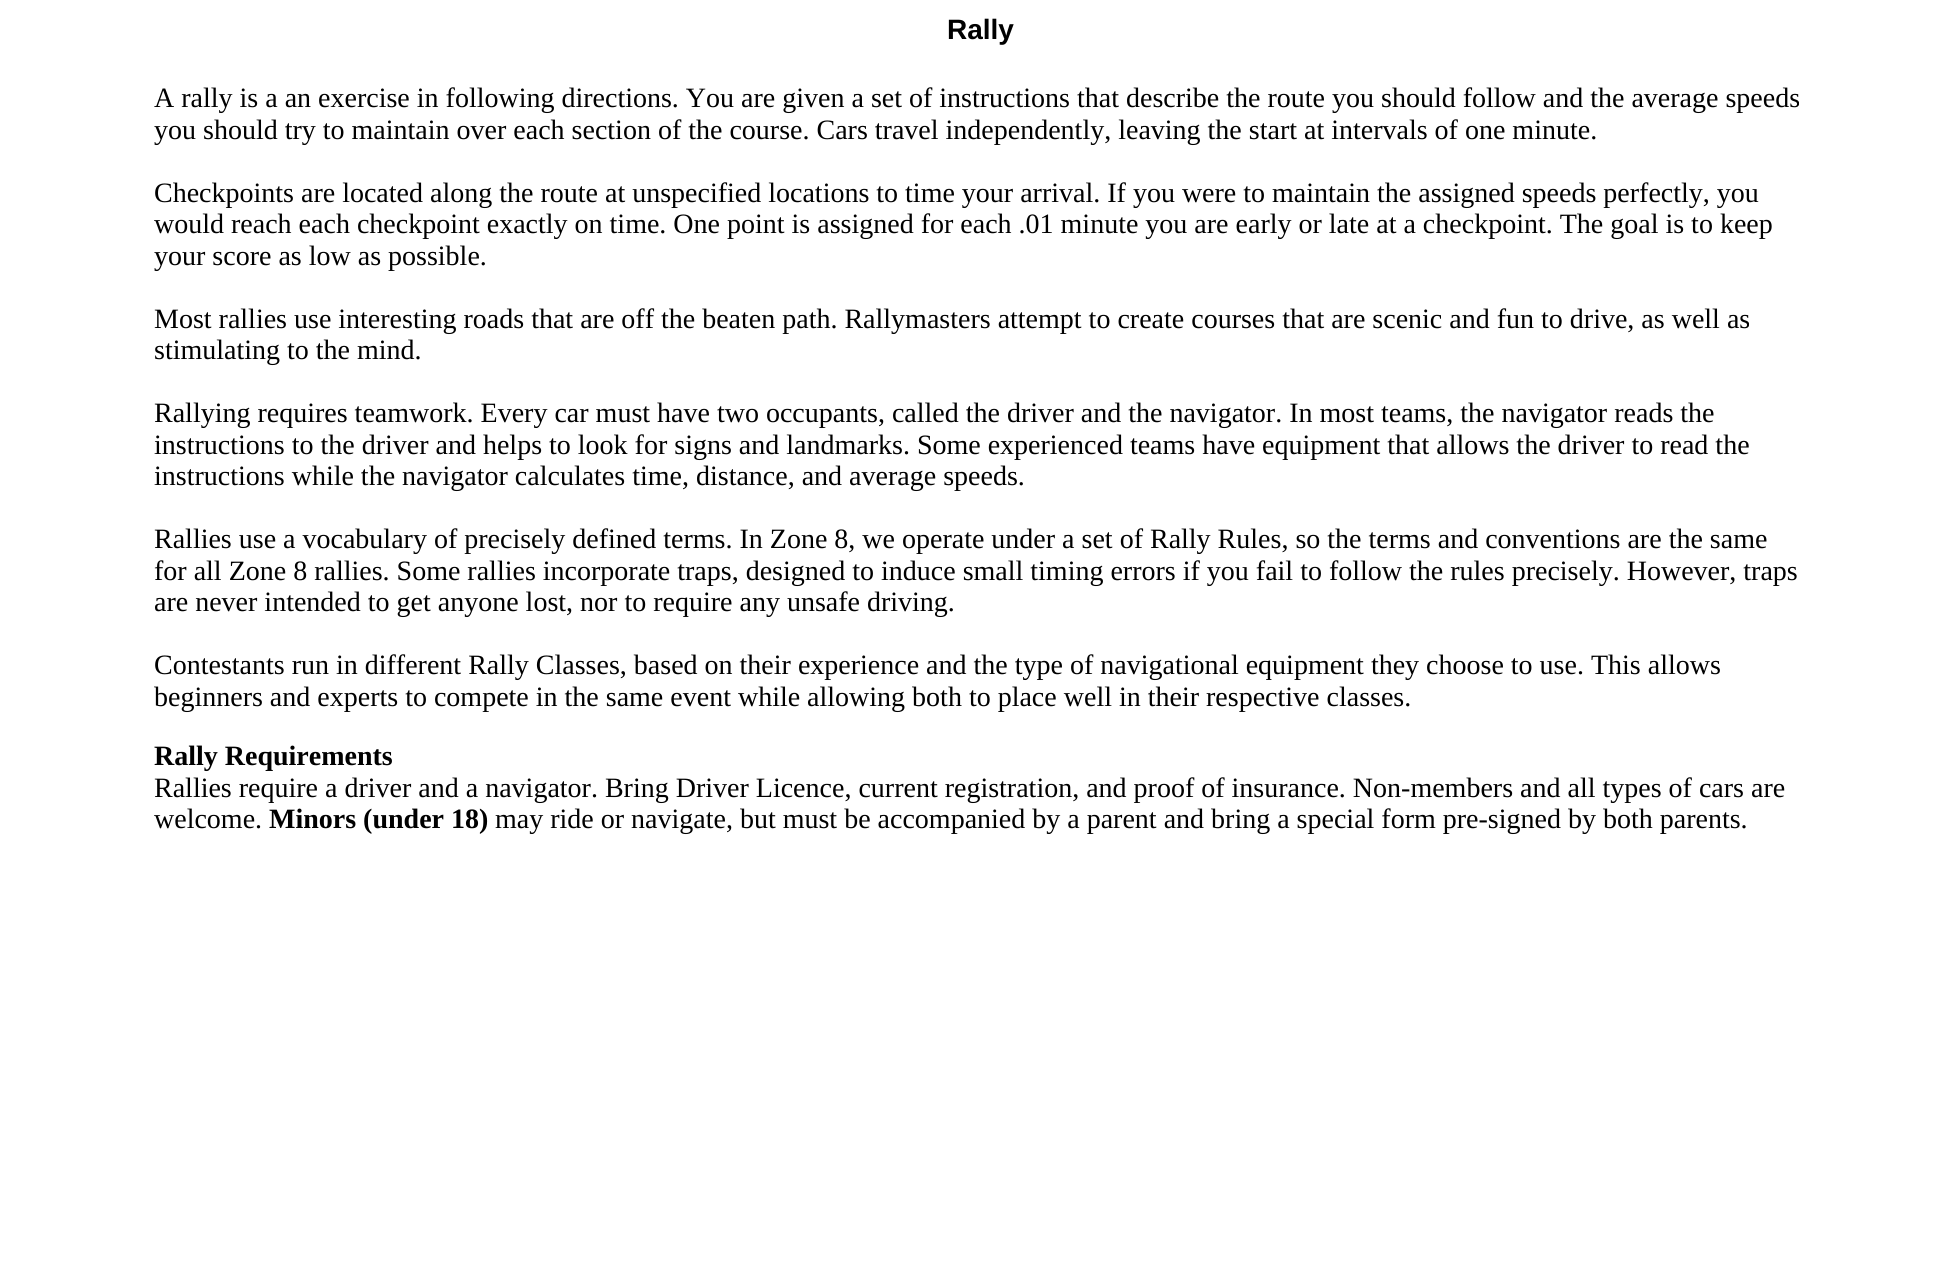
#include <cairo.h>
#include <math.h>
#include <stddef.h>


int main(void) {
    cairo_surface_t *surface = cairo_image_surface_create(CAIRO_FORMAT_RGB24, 1959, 1265);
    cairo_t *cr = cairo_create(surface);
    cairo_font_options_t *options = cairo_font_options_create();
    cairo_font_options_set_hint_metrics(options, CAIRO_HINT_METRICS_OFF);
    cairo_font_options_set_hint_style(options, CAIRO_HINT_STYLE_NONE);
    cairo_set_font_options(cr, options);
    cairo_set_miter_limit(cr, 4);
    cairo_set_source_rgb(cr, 1, 1, 1);
    cairo_paint(cr);
    cairo_select_font_face(cr, "Liberation Sans", CAIRO_FONT_SLANT_NORMAL, CAIRO_FONT_WEIGHT_BOLD);
    cairo_set_font_size(cr, 28);
    cairo_set_source_rgb(cr, 0, 0, 0);
    cairo_move_to(cr, 947, 39);
    cairo_show_text(cr, "Rally");
    cairo_select_font_face(cr, "Liberation Serif", CAIRO_FONT_SLANT_NORMAL, CAIRO_FONT_WEIGHT_NORMAL);
    cairo_move_to(cr, 154, 107);
    cairo_show_text(cr, "A rally is a an exercise in following directions. You are given a set of instructions that describe the route you should follow and the average speeds");
    cairo_move_to(cr, 154, 139);
    cairo_show_text(cr, "you should try to maintain over each section of the course. Cars travel independently, leaving the start at intervals of one minute.");
    cairo_move_to(cr, 154, 202);
    cairo_show_text(cr, "Checkpoints are located along the route at unspecified locations to time your arrival. If you were to maintain the assigned speeds perfectly, you");
    cairo_move_to(cr, 154, 233);
    cairo_show_text(cr, "would reach each checkpoint exactly on time. One point is assigned for each .01 minute you are early or late at a checkpoint. The goal is to keep");
    cairo_move_to(cr, 154, 265);
    cairo_show_text(cr, "your score as low as possible.");
    cairo_move_to(cr, 154, 328);
    cairo_show_text(cr, "Most rallies use interesting roads that are off the beaten path. Rallymasters attempt to create courses that are scenic and fun to drive, as well as");
    cairo_move_to(cr, 154, 359);
    cairo_show_text(cr, "stimulating to the mind.");
    cairo_move_to(cr, 154, 422);
    cairo_show_text(cr, "Rallying requires teamwork. Every car must have two occupants, called the driver and the navigator. In most teams, the navigator reads the");
    cairo_move_to(cr, 154, 454);
    cairo_show_text(cr, "instructions to the driver and helps to look for signs and landmarks. Some experienced teams have equipment that allows the driver to read the");
    cairo_move_to(cr, 154, 485);
    cairo_show_text(cr, "instructions while the navigator calculates time, distance, and average speeds.");
    cairo_move_to(cr, 154, 548);
    cairo_show_text(cr, "Rallies use a vocabulary of precisely defined terms. In Zone 8, we operate under a set of Rally Rules, so the terms and conventions are the same");
    cairo_move_to(cr, 154, 580);
    cairo_show_text(cr, "for all Zone 8 rallies. Some rallies incorporate traps, designed to induce small timing errors if you fail to follow the rules precisely. However, traps");
    cairo_move_to(cr, 154, 611);
    cairo_show_text(cr, "are never intended to get anyone lost, nor to require any unsafe driving.");
    cairo_move_to(cr, 154, 674);
    cairo_show_text(cr, "Contestants run in different Rally Classes, based on their experience and the type of navigational equipment they choose to use. This allows");
    cairo_move_to(cr, 154, 706);
    cairo_show_text(cr, "beginners and experts to compete in the same event while allowing both to place well in their respective classes.");
    cairo_select_font_face(cr, "Liberation Serif", CAIRO_FONT_SLANT_NORMAL, CAIRO_FONT_WEIGHT_BOLD);
    cairo_move_to(cr, 154, 765);
    cairo_show_text(cr, "Rally Requirements");
    cairo_select_font_face(cr, "Liberation Serif", CAIRO_FONT_SLANT_NORMAL, CAIRO_FONT_WEIGHT_NORMAL);
    cairo_move_to(cr, 154, 797);
    cairo_show_text(cr, "Rallies require a driver and a navigator. Bring Driver Licence, current registration, and proof of insurance. Non-members and all types of cars are");
    cairo_move_to(cr, 154, 828);
    cairo_show_text(cr, "welcome.");
    cairo_select_font_face(cr, "Liberation Serif", CAIRO_FONT_SLANT_NORMAL, CAIRO_FONT_WEIGHT_BOLD);
    cairo_move_to(cr, 269, 828);
    cairo_show_text(cr, "Minors (under 18)");
    cairo_select_font_face(cr, "Liberation Serif", CAIRO_FONT_SLANT_NORMAL, CAIRO_FONT_WEIGHT_NORMAL);
    cairo_move_to(cr, 495, 828);
    cairo_show_text(cr, "may ride or navigate, but must be accompanied by a parent and bring a special form pre-signed by both parents.");
    cairo_surface_write_to_png(surface, "page.png");
    cairo_font_options_destroy(options);
    cairo_destroy(cr);
    cairo_surface_destroy(surface);
    return 0;
}
